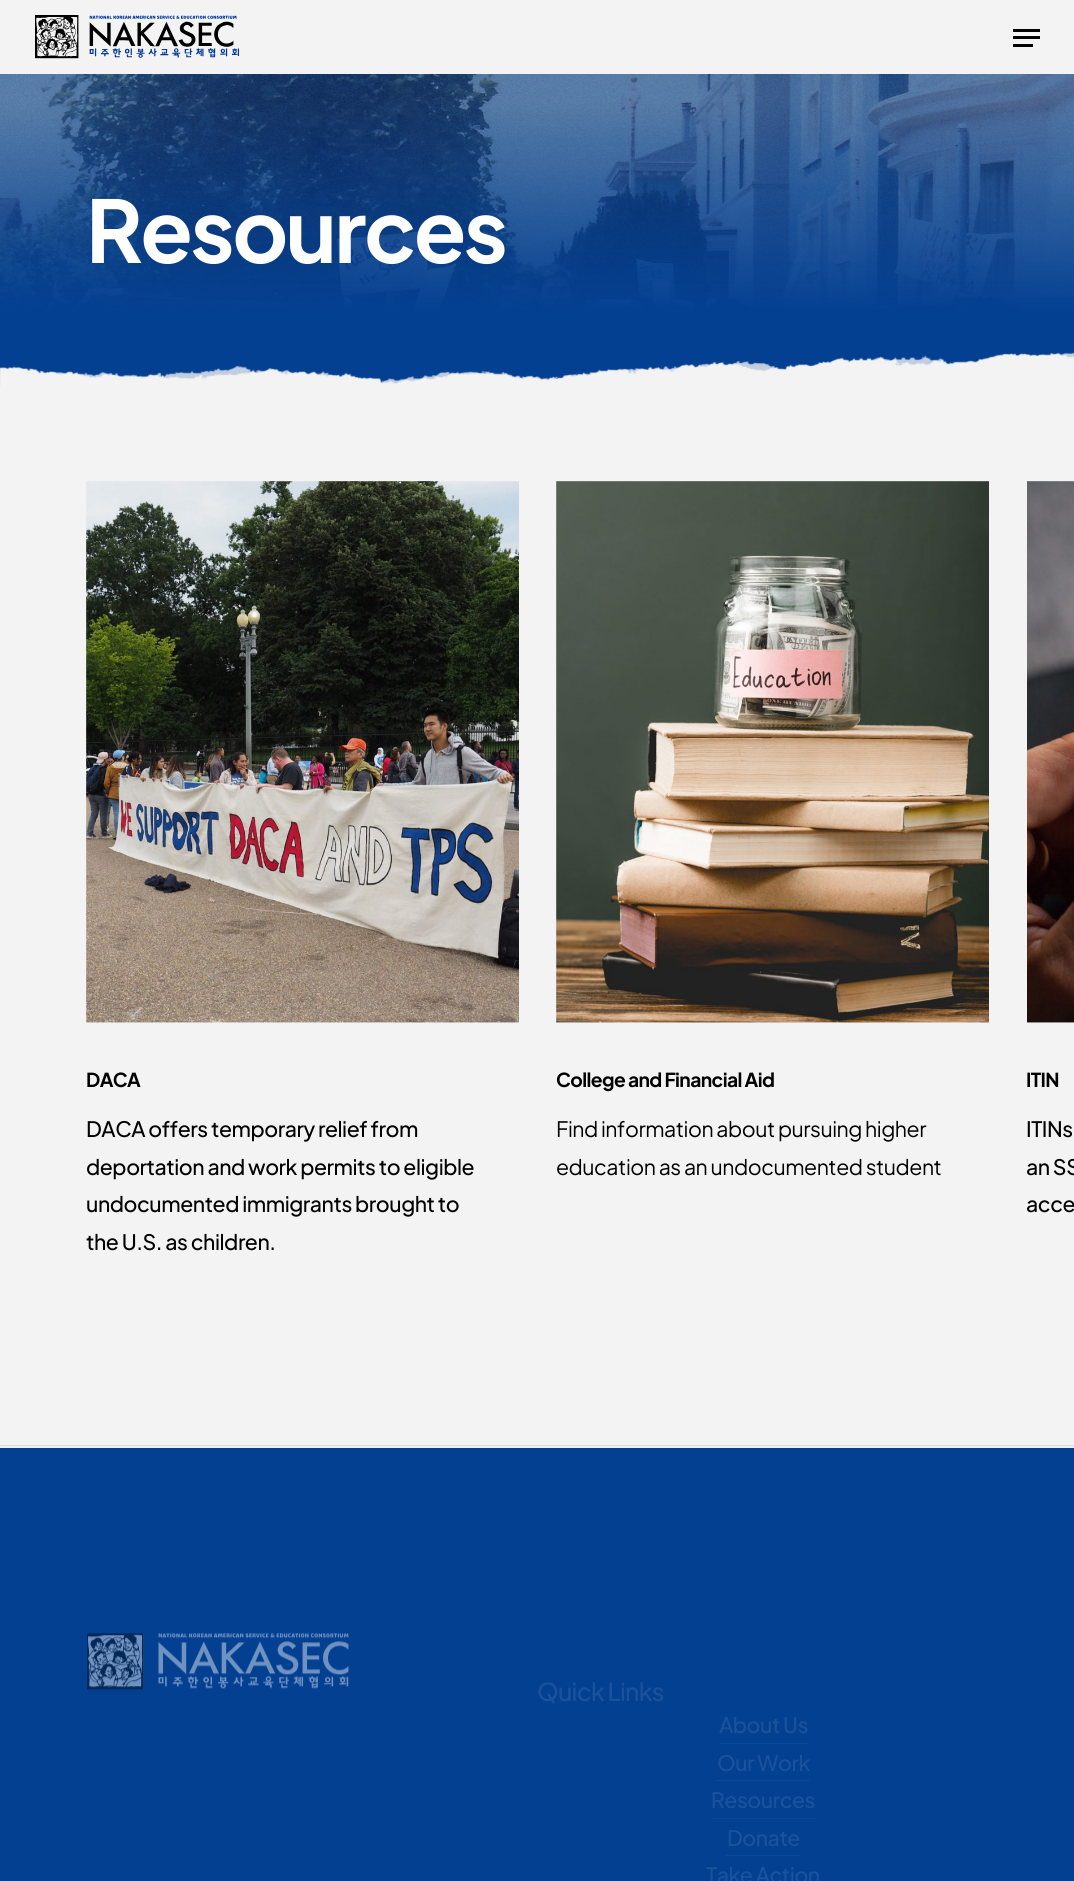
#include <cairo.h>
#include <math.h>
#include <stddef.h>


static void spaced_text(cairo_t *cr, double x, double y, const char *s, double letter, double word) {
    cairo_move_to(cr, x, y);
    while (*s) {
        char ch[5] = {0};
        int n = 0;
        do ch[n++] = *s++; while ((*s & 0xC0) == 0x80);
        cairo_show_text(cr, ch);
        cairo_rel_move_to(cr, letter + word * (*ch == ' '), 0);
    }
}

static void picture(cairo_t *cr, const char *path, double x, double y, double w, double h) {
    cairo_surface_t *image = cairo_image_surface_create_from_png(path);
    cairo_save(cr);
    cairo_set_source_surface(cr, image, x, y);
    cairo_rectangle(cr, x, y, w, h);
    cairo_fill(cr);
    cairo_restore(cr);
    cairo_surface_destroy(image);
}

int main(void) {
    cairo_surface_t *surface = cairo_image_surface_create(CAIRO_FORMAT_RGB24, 1074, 1881);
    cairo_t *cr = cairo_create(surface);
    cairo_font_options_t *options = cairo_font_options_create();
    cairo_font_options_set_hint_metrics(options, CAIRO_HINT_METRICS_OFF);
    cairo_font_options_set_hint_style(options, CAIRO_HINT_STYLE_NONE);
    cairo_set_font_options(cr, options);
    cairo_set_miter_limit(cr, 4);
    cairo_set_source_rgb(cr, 0.953, 0.953, 0.953);
    cairo_paint(cr);
    picture(cr, "img1.png", 35, 15, 205, 44);
    cairo_set_source_rgb(cr, 0, 0, 0);
    cairo_rectangle(cr, 1013, 29, 27, 3);
    cairo_fill(cr);
    cairo_rectangle(cr, 1013, 44, 20, 3);
    cairo_fill(cr);
    cairo_rectangle(cr, 1013, 36, 27, 3);
    cairo_fill(cr);
    picture(cr, "img2.png", 0, 74, 1074, 266);
    cairo_select_font_face(cr, "Plus Jakarta Sans", CAIRO_FONT_SLANT_NORMAL, CAIRO_FONT_WEIGHT_BOLD);
    cairo_set_font_size(cr, 86);
    cairo_set_source_rgb(cr, 1, 1, 1);
    spaced_text(cr, 86, 263, "Resources", -2.5, 0);
    picture(cr, "img3.png", 0, 340, 1074, 46);
    picture(cr, "img4.png", 86, 481, 433, 542);
    cairo_set_font_size(cr, 19.25);
    cairo_set_source_rgb(cr, 0, 0, 0);
    spaced_text(cr, 86, 1087, "DACA", -0.6, 0);
    cairo_select_font_face(cr, "Plus Jakarta Sans Medium", CAIRO_FONT_SLANT_NORMAL, CAIRO_FONT_WEIGHT_NORMAL);
    cairo_set_font_size(cr, 21.25);
    spaced_text(cr, 86, 1137, "DACA offers temporary relief from", -0.45, 0);
    spaced_text(cr, 86, 1175, "deportation and work permits to eligible", -0.45, 0);
    spaced_text(cr, 86, 1212, "undocumented immigrants brought to", -0.45, 0);
    spaced_text(cr, 86, 1250, "the U.S. as children.", -0.45, 0);
    picture(cr, "img5.png", 556, 481, 433, 542);
    cairo_select_font_face(cr, "Plus Jakarta Sans", CAIRO_FONT_SLANT_NORMAL, CAIRO_FONT_WEIGHT_BOLD);
    cairo_set_font_size(cr, 19.25);
    spaced_text(cr, 556, 1087, "College and Financial Aid", -0.6, 0);
    cairo_select_font_face(cr, "Plus Jakarta Sans", CAIRO_FONT_SLANT_NORMAL, CAIRO_FONT_WEIGHT_NORMAL);
    cairo_set_font_size(cr, 21.25);
    spaced_text(cr, 556, 1137, "Find information about pursuing higher", -0.45, 0);
    spaced_text(cr, 556, 1175, "education as an undocumented student", -0.45, 0);
    picture(cr, "img6.png", 1027, 481, 47, 542);
    cairo_select_font_face(cr, "Plus Jakarta Sans", CAIRO_FONT_SLANT_NORMAL, CAIRO_FONT_WEIGHT_BOLD);
    cairo_set_font_size(cr, 19.25);
    spaced_text(cr, 1026, 1087, "ITIN", -0.6, 0);
    cairo_select_font_face(cr, "Plus Jakarta Sans Medium", CAIRO_FONT_SLANT_NORMAL, CAIRO_FONT_WEIGHT_NORMAL);
    cairo_set_font_size(cr, 21.25);
    spaced_text(cr, 1026, 1137, "ITINs", -0.45, 0);
    spaced_text(cr, 1026, 1175, "an SS", -0.45, 0);
    spaced_text(cr, 1026, 1212, "acce", -0.45, 0);
    cairo_set_source_rgb(cr, 0.859, 0.859, 0.859);
    cairo_rectangle(cr, 0, 1445, 1074, 1);
    cairo_fill(cr);
    cairo_set_source_rgb(cr, 0.012, 0.251, 0.573);
    cairo_rectangle(cr, 0, 1448, 1074, 433);
    cairo_fill(cr);
    picture(cr, "img7.png", 87, 1633, 262, 57);
    cairo_set_font_size(cr, 24.75);
    cairo_set_source_rgb(cr, 0.102, 0.322, 0.612);
    spaced_text(cr, 537, 1701, "Quick Links", -0.75, 0);
    cairo_set_font_size(cr, 21.25);
    spaced_text(cr, 719, 1733, "About Us", -0.45, 0);
    cairo_set_source_rgb(cr, 0.051, 0.278, 0.588);
    cairo_rectangle(cr, 719, 1743, 89, 1);
    cairo_fill(cr);
    cairo_set_source_rgb(cr, 0.102, 0.322, 0.612);
    spaced_text(cr, 717, 1771, "Our Work", -0.45, 0);
    cairo_set_source_rgb(cr, 0.051, 0.278, 0.588);
    cairo_rectangle(cr, 716, 1780, 94, 1);
    cairo_fill(cr);
    cairo_set_source_rgb(cr, 0.102, 0.322, 0.612);
    spaced_text(cr, 711, 1808, "Resources", -0.45, 0);
    cairo_set_source_rgb(cr, 0.051, 0.278, 0.588);
    cairo_rectangle(cr, 711, 1818, 104, 1);
    cairo_fill(cr);
    cairo_set_source_rgb(cr, 0.102, 0.322, 0.612);
    spaced_text(cr, 727, 1846, "Donate", -0.45, 0);
    cairo_set_source_rgb(cr, 0.051, 0.278, 0.588);
    cairo_rectangle(cr, 726, 1855, 74, 1);
    cairo_fill(cr);
    cairo_set_source_rgb(cr, 0.102, 0.322, 0.612);
    spaced_text(cr, 706, 1883, "Take Action", -0.45, 0);
    cairo_surface_write_to_png(surface, "page.png");
    cairo_font_options_destroy(options);
    cairo_destroy(cr);
    cairo_surface_destroy(surface);
    return 0;
}
